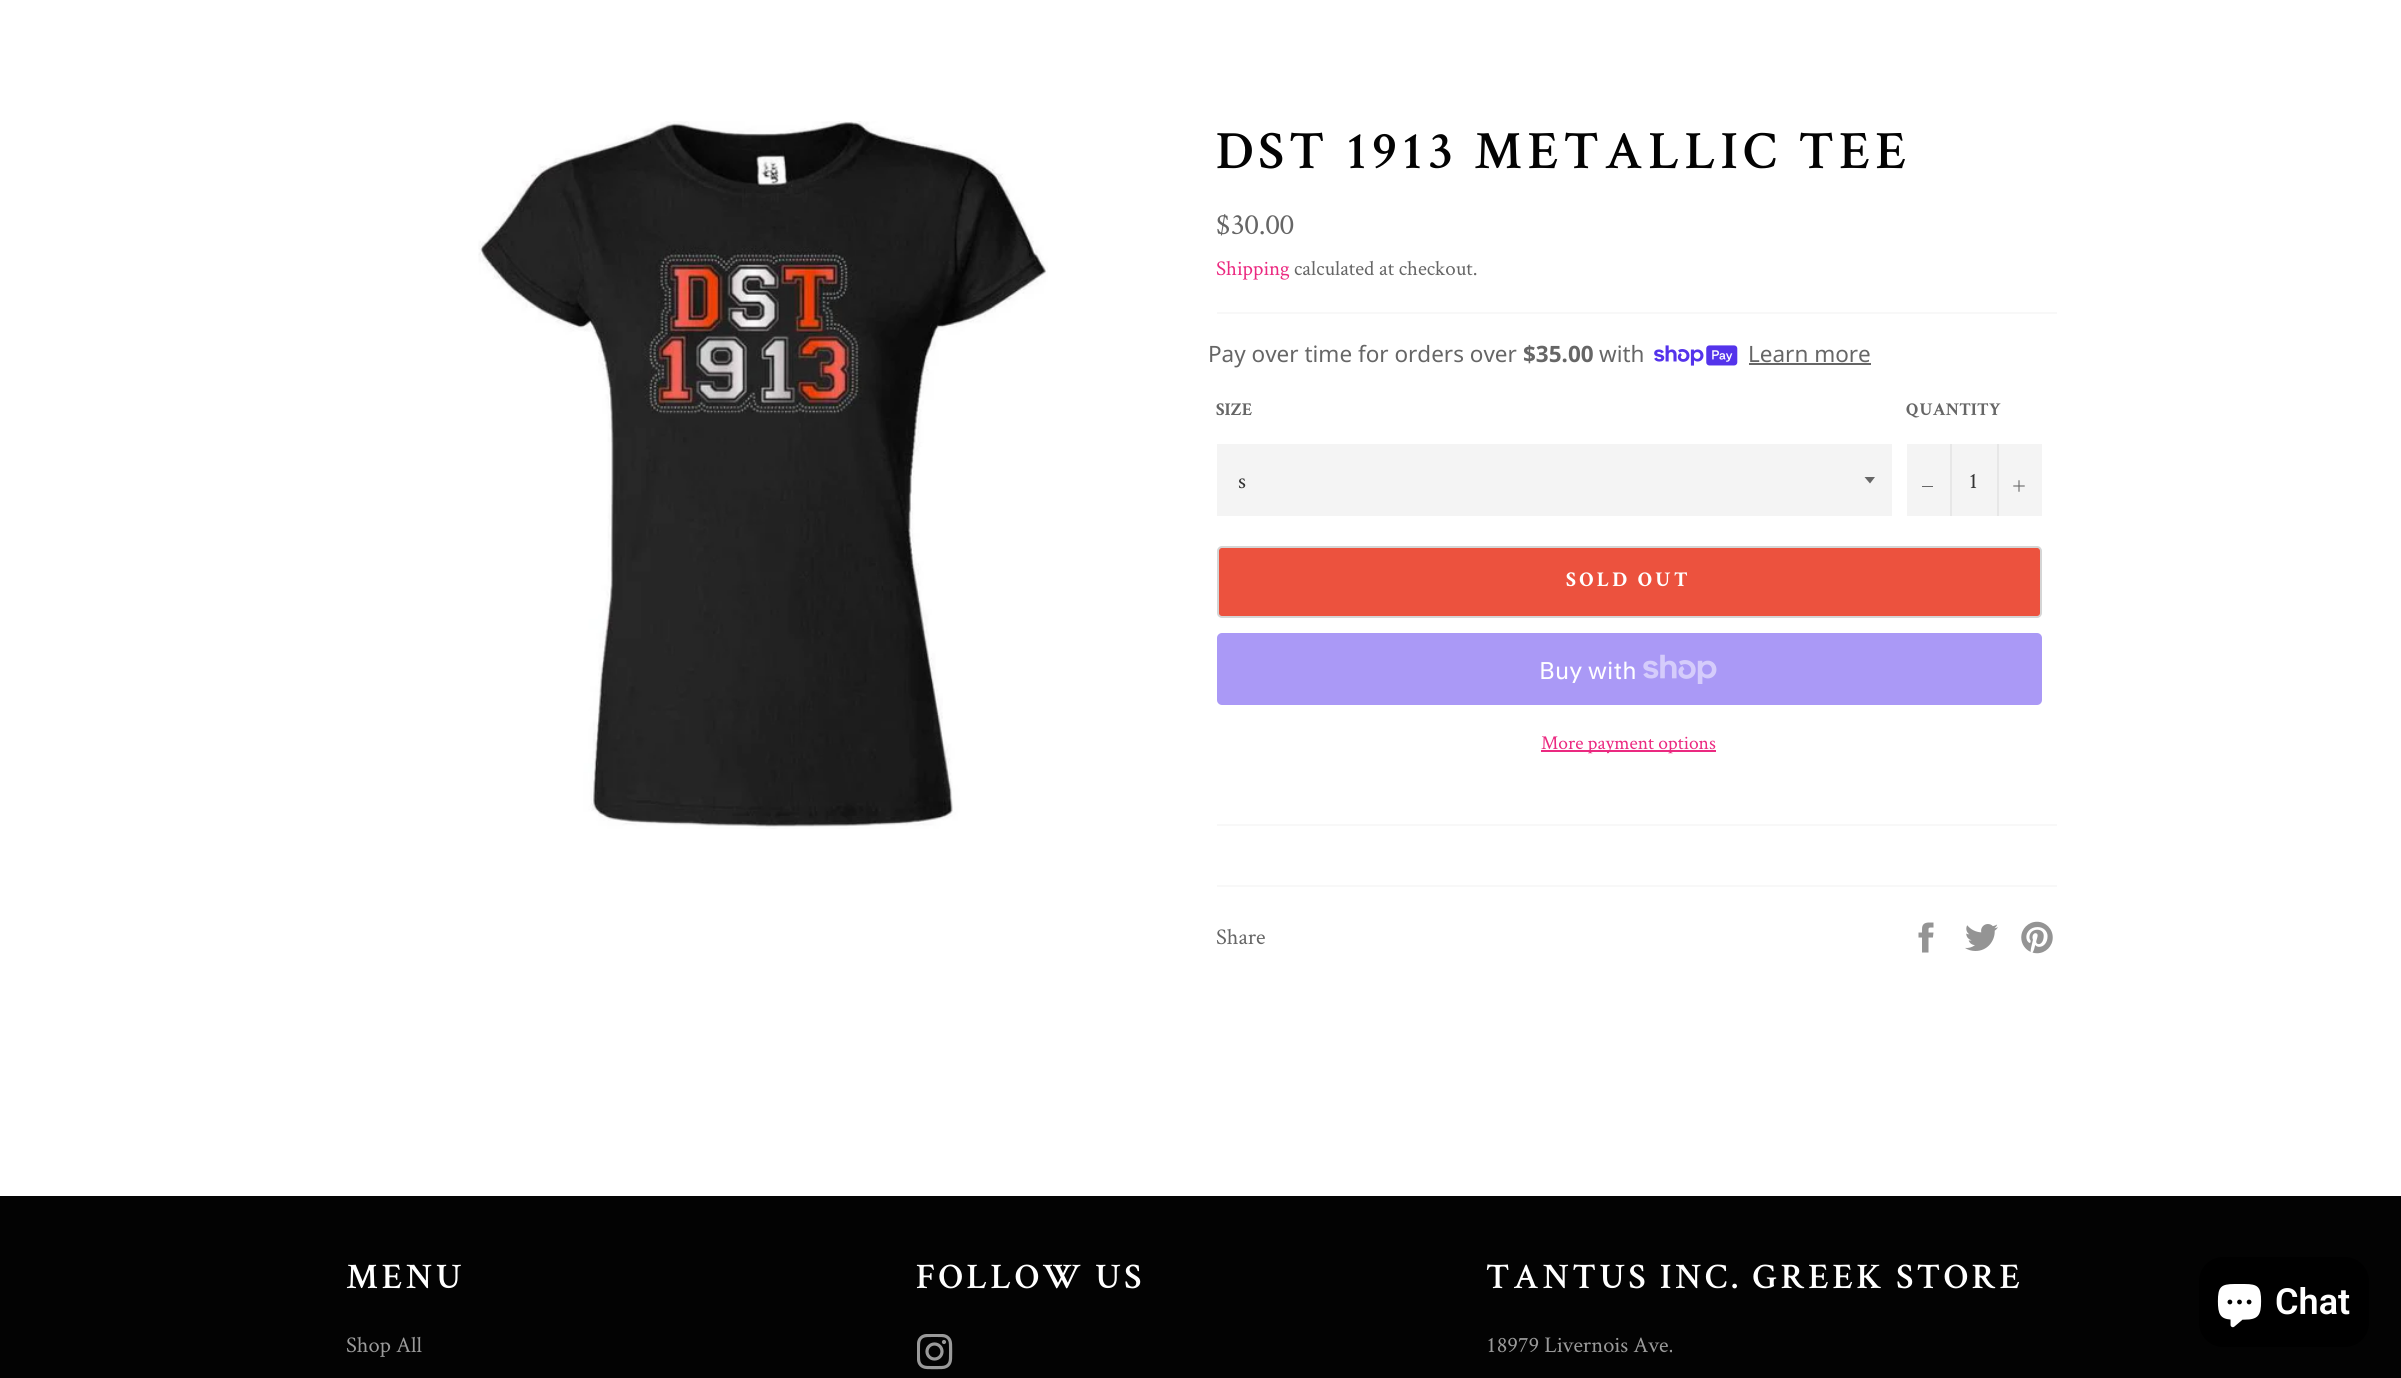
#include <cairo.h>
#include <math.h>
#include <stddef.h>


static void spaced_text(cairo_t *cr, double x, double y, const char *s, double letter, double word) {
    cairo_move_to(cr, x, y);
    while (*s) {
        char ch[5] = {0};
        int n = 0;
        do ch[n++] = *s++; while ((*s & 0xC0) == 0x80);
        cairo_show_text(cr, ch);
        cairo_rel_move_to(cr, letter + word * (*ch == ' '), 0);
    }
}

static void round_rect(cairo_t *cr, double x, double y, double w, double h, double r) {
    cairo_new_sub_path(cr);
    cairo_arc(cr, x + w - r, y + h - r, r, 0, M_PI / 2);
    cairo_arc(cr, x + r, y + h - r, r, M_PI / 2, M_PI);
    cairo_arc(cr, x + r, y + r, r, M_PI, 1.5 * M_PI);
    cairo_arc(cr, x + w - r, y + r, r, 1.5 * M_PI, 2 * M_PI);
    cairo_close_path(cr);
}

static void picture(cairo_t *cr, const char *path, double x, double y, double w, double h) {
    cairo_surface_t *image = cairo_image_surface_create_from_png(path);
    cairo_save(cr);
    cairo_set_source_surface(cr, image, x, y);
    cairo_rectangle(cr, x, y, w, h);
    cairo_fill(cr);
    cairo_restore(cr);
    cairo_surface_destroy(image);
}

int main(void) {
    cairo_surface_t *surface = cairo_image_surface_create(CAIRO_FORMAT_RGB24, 2401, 1378);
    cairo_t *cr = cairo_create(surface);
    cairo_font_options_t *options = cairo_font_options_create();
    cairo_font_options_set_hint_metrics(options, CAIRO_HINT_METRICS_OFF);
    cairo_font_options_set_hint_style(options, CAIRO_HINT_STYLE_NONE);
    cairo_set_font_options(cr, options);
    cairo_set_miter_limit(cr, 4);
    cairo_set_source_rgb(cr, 1, 1, 1);
    cairo_paint(cr);
    picture(cr, "img1.png", 478, 121, 570, 708);
    cairo_select_font_face(cr, "Crimson Text SemiBold", CAIRO_FONT_SLANT_NORMAL, CAIRO_FONT_WEIGHT_NORMAL);
    cairo_set_font_size(cr, 54);
    cairo_set_source_rgb(cr, 0.012, 0.012, 0.012);
    spaced_text(cr, 1216, 168, "DST 1913 METALLIC TEE", 5.4, 0);
    cairo_select_font_face(cr, "Crimson Text", CAIRO_FONT_SLANT_NORMAL, CAIRO_FONT_WEIGHT_NORMAL);
    cairo_set_font_size(cr, 30);
    cairo_set_source_rgb(cr, 0.4, 0.4, 0.4);
    cairo_move_to(cr, 1216, 234);
    cairo_show_text(cr, "$30.00");
    cairo_set_font_size(cr, 21);
    cairo_set_source_rgb(cr, 0.918, 0.161, 0.502);
    cairo_move_to(cr, 1216, 275);
    cairo_show_text(cr, "Shipping");
    cairo_set_source_rgb(cr, 0.4, 0.4, 0.4);
    cairo_move_to(cr, 1294, 275);
    cairo_show_text(cr, "calculated at checkout.");
    cairo_set_source_rgb(cr, 0.969, 0.969, 0.969);
    cairo_rectangle(cr, 1217, 312, 840, 2);
    cairo_fill(cr);
    cairo_select_font_face(cr, "Noto Sans", CAIRO_FONT_SLANT_NORMAL, CAIRO_FONT_WEIGHT_NORMAL);
    cairo_set_font_size(cr, 22.5);
    cairo_set_source_rgb(cr, 0.4, 0.4, 0.4);
    cairo_move_to(cr, 1208, 362);
    cairo_show_text(cr, "Pay over time for orders over");
    cairo_select_font_face(cr, "Noto Sans", CAIRO_FONT_SLANT_NORMAL, CAIRO_FONT_WEIGHT_BOLD);
    cairo_move_to(cr, 1523, 362);
    cairo_show_text(cr, "$35.00");
    cairo_select_font_face(cr, "Noto Sans", CAIRO_FONT_SLANT_NORMAL, CAIRO_FONT_WEIGHT_NORMAL);
    cairo_move_to(cr, 1599, 362);
    cairo_show_text(cr, "with");
    picture(cr, "img2.png", 1654, 345, 84, 21);
    cairo_move_to(cr, 1748, 362);
    cairo_show_text(cr, "Learn more");
    cairo_rectangle(cr, 1749, 363, 122, 2);
    cairo_fill(cr);
    cairo_select_font_face(cr, "Crimson Text", CAIRO_FONT_SLANT_NORMAL, CAIRO_FONT_WEIGHT_BOLD);
    cairo_set_font_size(cr, 18);
    cairo_move_to(cr, 1216, 415);
    cairo_show_text(cr, "SIZE");
    cairo_set_source_rgb(cr, 0.957, 0.957, 0.957);
    cairo_rectangle(cr, 1217, 444, 675, 72);
    cairo_fill(cr);
    cairo_set_source_rgb(cr, 0.4, 0.4, 0.4);
    cairo_new_path(cr);
    cairo_move_to(cr, 1864.5, 477);
    cairo_line_to(cr, 1870, 483.5);
    cairo_line_to(cr, 1875, 477);
    cairo_close_path(cr);
    cairo_fill(cr);
    cairo_select_font_face(cr, "Crimson Text", CAIRO_FONT_SLANT_NORMAL, CAIRO_FONT_WEIGHT_NORMAL);
    cairo_set_font_size(cr, 22.5);
    cairo_set_source_rgb(cr, 0.2, 0.2, 0.2);
    cairo_move_to(cr, 1238, 488);
    cairo_show_text(cr, "s");
    cairo_select_font_face(cr, "Crimson Text", CAIRO_FONT_SLANT_NORMAL, CAIRO_FONT_WEIGHT_BOLD);
    cairo_set_font_size(cr, 18);
    cairo_set_source_rgb(cr, 0.4, 0.4, 0.4);
    cairo_move_to(cr, 1906, 415);
    cairo_show_text(cr, "QUANTITY");
    cairo_set_source_rgb(cr, 0.957, 0.957, 0.957);
    cairo_rectangle(cr, 1907, 444, 135, 72);
    cairo_fill(cr);
    cairo_set_source_rgb(cr, 0.906, 0.906, 0.906);
    cairo_rectangle(cr, 1950, 444, 2, 72);
    cairo_fill(cr);
    cairo_set_source_rgb(cr, 0.4, 0.4, 0.4);
    cairo_rectangle(cr, 1922, 486, 11, 1);
    cairo_fill(cr);
    cairo_select_font_face(cr, "Crimson Text", CAIRO_FONT_SLANT_NORMAL, CAIRO_FONT_WEIGHT_NORMAL);
    cairo_set_font_size(cr, 22.5);
    cairo_set_source_rgb(cr, 0.2, 0.2, 0.2);
    cairo_move_to(cr, 1968, 488);
    cairo_show_text(cr, "1");
    cairo_set_source_rgb(cr, 0.906, 0.906, 0.906);
    cairo_rectangle(cr, 1997, 444, 2, 72);
    cairo_fill(cr);
    picture(cr, "img3.png", 2013, 480, 12, 12);
    cairo_set_source_rgb(cr, 0.925, 0.322, 0.243);
    round_rect(cr, 1218, 547, 823, 70, 4);
    cairo_fill_preserve(cr);
    cairo_set_source_rgb(cr, 0.835, 0.835, 0.835);
    cairo_stroke(cr);
    cairo_select_font_face(cr, "Crimson Text", CAIRO_FONT_SLANT_NORMAL, CAIRO_FONT_WEIGHT_BOLD);
    cairo_set_font_size(cr, 21);
    cairo_set_source_rgb(cr, 1, 1, 1);
    spaced_text(cr, 1566, 586, "SOLD OUT", 3.25, 0);
    cairo_set_source_rgb(cr, 0.667, 0.6, 0.961);
    round_rect(cr, 1217, 633, 825, 72, 5);
    cairo_fill(cr);
    cairo_select_font_face(cr, "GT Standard", CAIRO_FONT_SLANT_NORMAL, CAIRO_FONT_WEIGHT_NORMAL);
    cairo_set_font_size(cr, 24);
    cairo_set_source_rgb(cr, 1, 1, 1);
    cairo_move_to(cr, 1539, 679);
    cairo_show_text(cr, "Buy with");
    picture(cr, "img4.png", 1643, 654, 74, 30);
    cairo_set_source_rgb(cr, 0.918, 0.161, 0.502);
    cairo_rectangle(cr, 1541, 750, 175, 2);
    cairo_fill(cr);
    cairo_select_font_face(cr, "Crimson Text", CAIRO_FONT_SLANT_NORMAL, CAIRO_FONT_WEIGHT_NORMAL);
    cairo_set_font_size(cr, 19.5);
    cairo_move_to(cr, 1541, 749);
    cairo_show_text(cr, "More payment options");
    cairo_set_source_rgb(cr, 0.969, 0.969, 0.969);
    cairo_rectangle(cr, 1217, 824, 840, 2);
    cairo_fill(cr);
    cairo_rectangle(cr, 1217, 885, 840, 2);
    cairo_fill(cr);
    cairo_set_font_size(cr, 22.5);
    cairo_set_source_rgb(cr, 0.4, 0.4, 0.4);
    cairo_move_to(cr, 1216, 944);
    cairo_show_text(cr, "Share");
    picture(cr, "img5.png", 1918, 922, 16, 31);
    picture(cr, "img6.png", 1965, 924, 33, 27);
    picture(cr, "img7.png", 2021, 921, 32, 33);
    cairo_set_source_rgb(cr, 0.012, 0.012, 0.012);
    cairo_rectangle(cr, 0, 1196, 2401, 182);
    cairo_fill(cr);
    cairo_select_font_face(cr, "Crimson Text SemiBold", CAIRO_FONT_SLANT_NORMAL, CAIRO_FONT_WEIGHT_NORMAL);
    cairo_set_font_size(cr, 36);
    cairo_set_source_rgb(cr, 1, 1, 1);
    spaced_text(cr, 346, 1288, "MENU", 3.6, 0);
    cairo_select_font_face(cr, "Crimson Text", CAIRO_FONT_SLANT_NORMAL, CAIRO_FONT_WEIGHT_NORMAL);
    cairo_set_font_size(cr, 22.5);
    cairo_set_source_rgb(cr, 0.604, 0.604, 0.604);
    cairo_move_to(cr, 346, 1352);
    cairo_show_text(cr, "Shop All");
    cairo_select_font_face(cr, "Crimson Text SemiBold", CAIRO_FONT_SLANT_NORMAL, CAIRO_FONT_WEIGHT_NORMAL);
    cairo_set_font_size(cr, 36);
    cairo_set_source_rgb(cr, 1, 1, 1);
    spaced_text(cr, 916, 1288, "FOLLOW US", 3.6, 0);
    picture(cr, "img8.png", 917, 1334, 36, 36);
    spaced_text(cr, 1486, 1288, "TANTUS INC. GREEK STORE", 3.6, 0);
    cairo_select_font_face(cr, "Crimson Text", CAIRO_FONT_SLANT_NORMAL, CAIRO_FONT_WEIGHT_NORMAL);
    cairo_set_font_size(cr, 22.5);
    cairo_set_source_rgb(cr, 0.604, 0.604, 0.604);
    cairo_move_to(cr, 1486, 1352);
    cairo_show_text(cr, "18979 Livernois Ave.");
    cairo_set_source_rgb(cr, 0, 0, 0);
    round_rect(cr, 2199, 1257, 170, 90, 24);
    cairo_fill(cr);
    picture(cr, "img9.png", 2217, 1284, 45, 44);
    cairo_select_font_face(cr, "Roboto SemiBold", CAIRO_FONT_SLANT_NORMAL, CAIRO_FONT_WEIGHT_NORMAL);
    cairo_set_font_size(cr, 36);
    cairo_set_source_rgb(cr, 1, 1, 1);
    cairo_move_to(cr, 2275, 1314);
    cairo_show_text(cr, "Chat");
    cairo_surface_write_to_png(surface, "page.png");
    cairo_font_options_destroy(options);
    cairo_destroy(cr);
    cairo_surface_destroy(surface);
    return 0;
}
